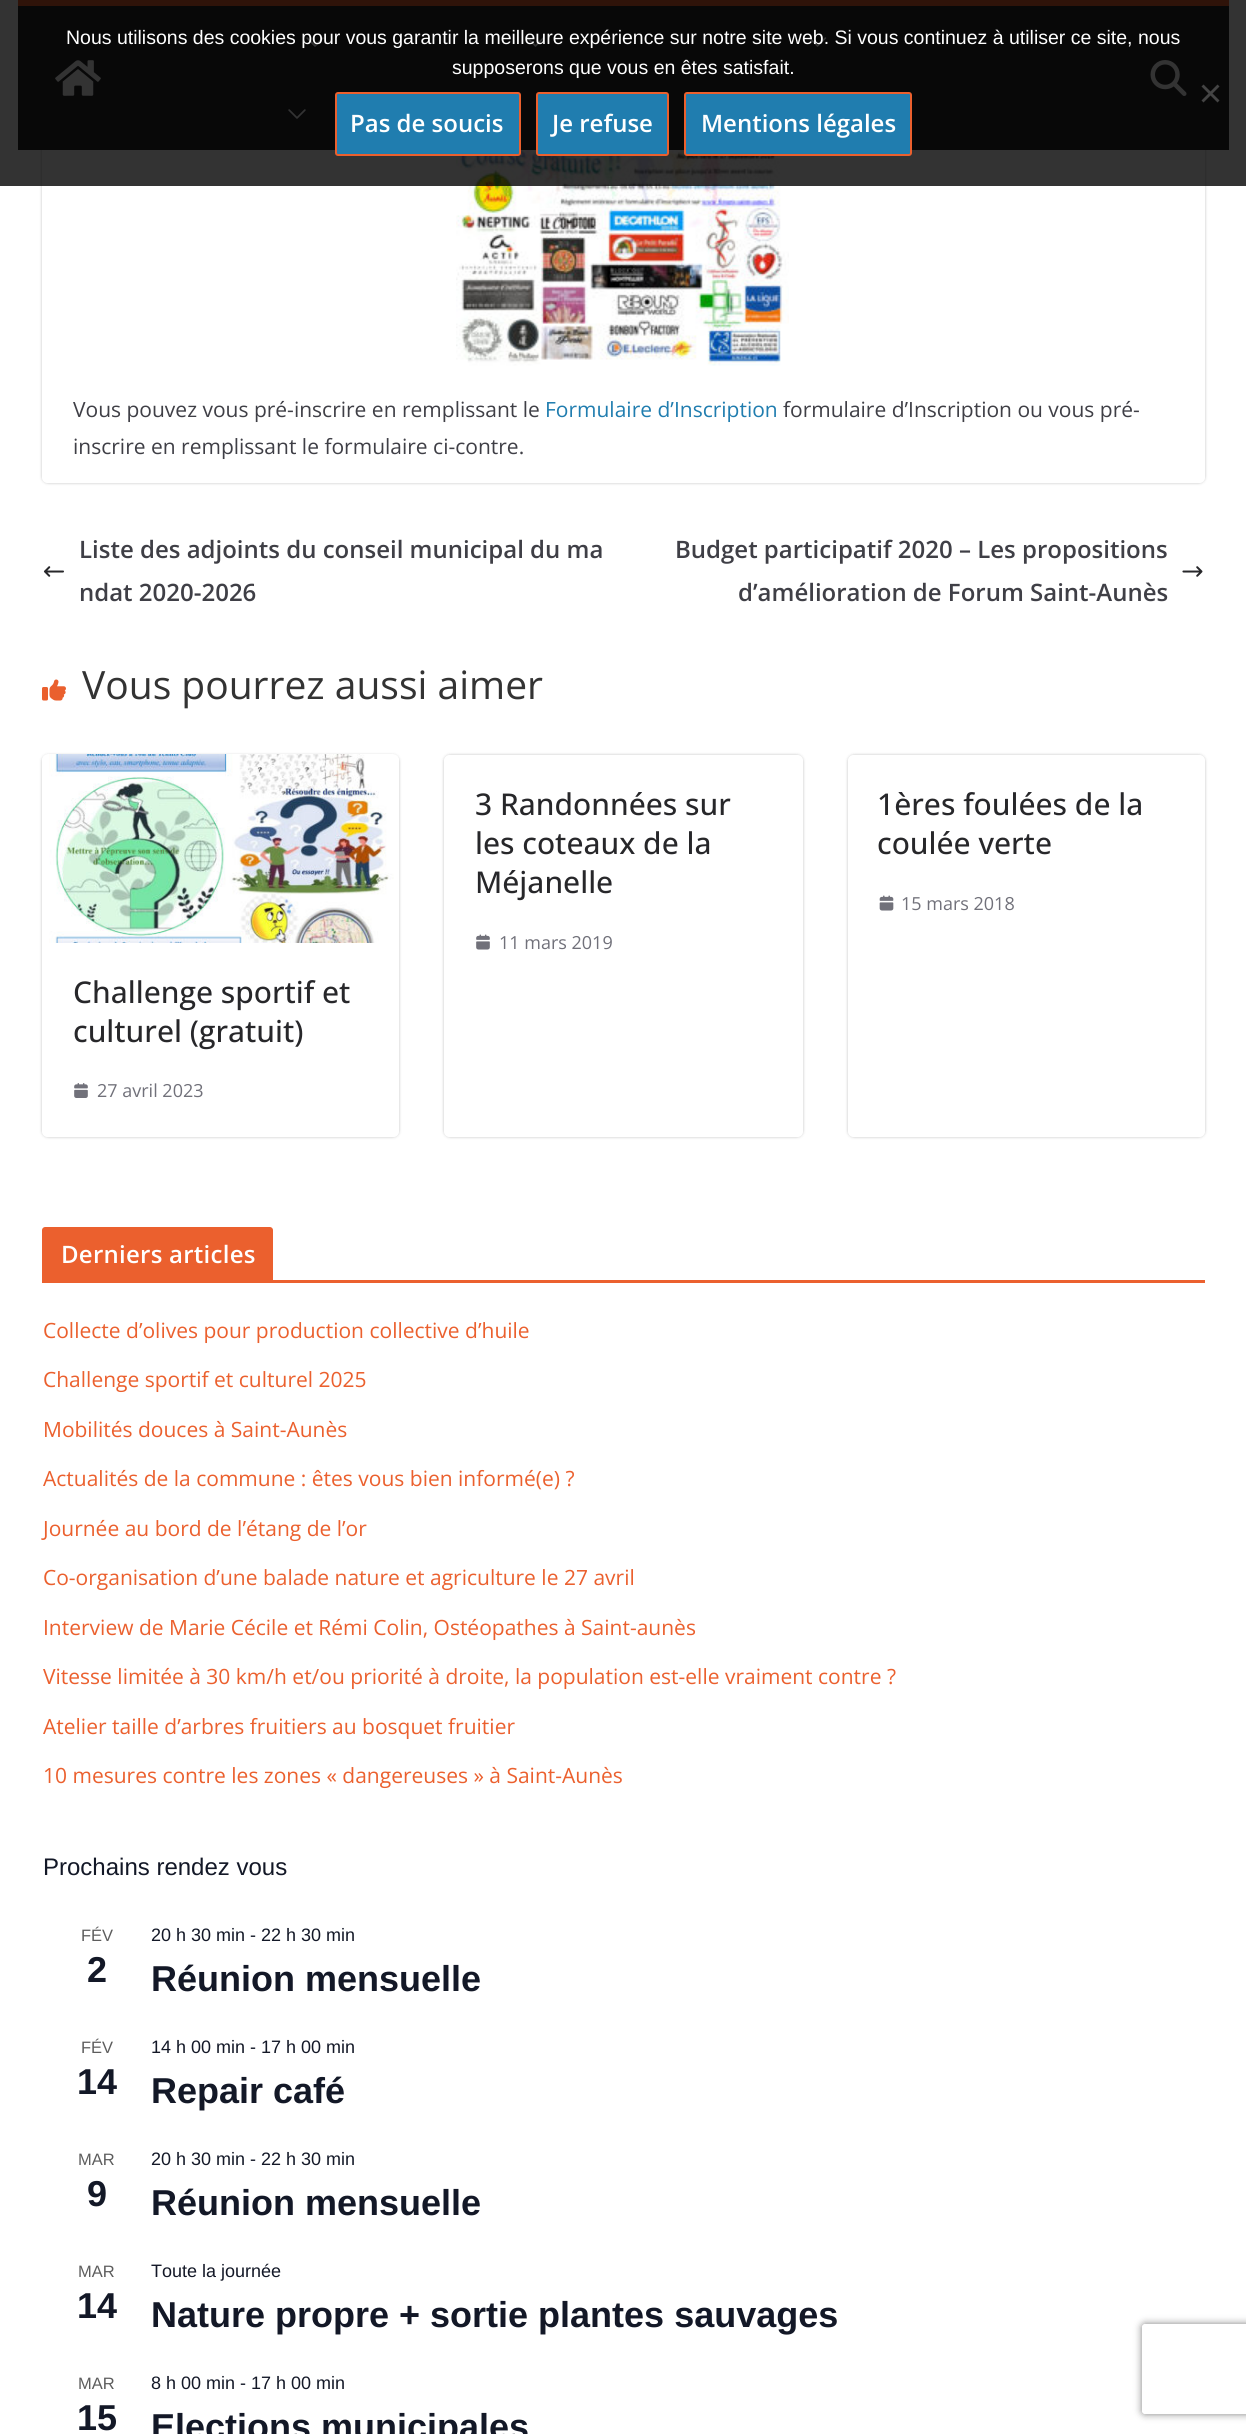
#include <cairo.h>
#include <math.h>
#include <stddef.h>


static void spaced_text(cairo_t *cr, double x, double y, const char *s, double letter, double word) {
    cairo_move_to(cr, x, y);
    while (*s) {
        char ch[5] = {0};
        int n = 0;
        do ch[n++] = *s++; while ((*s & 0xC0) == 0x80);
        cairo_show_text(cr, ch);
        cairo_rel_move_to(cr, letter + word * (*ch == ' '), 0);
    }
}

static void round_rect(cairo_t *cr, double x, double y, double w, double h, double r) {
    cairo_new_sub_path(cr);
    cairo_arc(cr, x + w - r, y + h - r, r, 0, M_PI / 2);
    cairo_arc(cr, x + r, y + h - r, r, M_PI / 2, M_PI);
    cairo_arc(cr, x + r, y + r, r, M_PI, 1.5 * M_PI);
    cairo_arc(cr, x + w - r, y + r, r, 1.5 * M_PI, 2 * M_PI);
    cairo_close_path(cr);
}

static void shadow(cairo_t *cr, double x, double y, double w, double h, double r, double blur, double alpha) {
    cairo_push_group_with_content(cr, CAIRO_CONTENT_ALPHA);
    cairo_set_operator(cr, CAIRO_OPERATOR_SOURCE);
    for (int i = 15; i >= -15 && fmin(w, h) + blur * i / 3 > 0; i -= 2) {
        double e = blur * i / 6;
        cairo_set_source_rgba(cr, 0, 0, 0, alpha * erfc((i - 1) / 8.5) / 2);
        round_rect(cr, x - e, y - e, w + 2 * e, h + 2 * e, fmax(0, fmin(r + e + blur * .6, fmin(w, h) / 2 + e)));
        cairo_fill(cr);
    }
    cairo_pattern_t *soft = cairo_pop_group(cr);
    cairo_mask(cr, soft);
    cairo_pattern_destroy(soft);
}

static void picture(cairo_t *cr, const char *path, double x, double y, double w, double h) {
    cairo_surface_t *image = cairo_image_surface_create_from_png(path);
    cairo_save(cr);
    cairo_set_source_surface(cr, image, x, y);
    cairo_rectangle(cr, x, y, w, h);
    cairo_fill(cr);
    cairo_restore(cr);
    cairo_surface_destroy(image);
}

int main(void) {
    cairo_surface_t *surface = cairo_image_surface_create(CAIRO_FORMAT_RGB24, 1246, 2434);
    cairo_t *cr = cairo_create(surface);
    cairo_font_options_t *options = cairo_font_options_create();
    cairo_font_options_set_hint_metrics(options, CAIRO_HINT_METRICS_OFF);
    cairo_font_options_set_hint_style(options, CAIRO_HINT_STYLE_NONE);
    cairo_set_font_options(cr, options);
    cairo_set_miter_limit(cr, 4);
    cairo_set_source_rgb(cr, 1, 1, 1);
    cairo_paint(cr);
    cairo_save(cr);
    cairo_set_fill_rule(cr, CAIRO_FILL_RULE_EVEN_ODD);
    cairo_new_path(cr);
    cairo_move_to(cr, 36, 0);
    cairo_line_to(cr, 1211, 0);
    cairo_line_to(cr, 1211, 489);
    cairo_line_to(cr, 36, 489);
    cairo_close_path(cr);
    cairo_move_to(cr, 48, -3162);
    cairo_line_to(cr, 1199, -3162);
    cairo_curve_to(cr, 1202.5, -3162, 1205, -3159.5, 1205, -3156);
    cairo_line_to(cr, 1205, 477);
    cairo_curve_to(cr, 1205, 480.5, 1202.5, 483, 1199, 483);
    cairo_line_to(cr, 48, 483);
    cairo_curve_to(cr, 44.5, 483, 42, 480.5, 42, 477);
    cairo_line_to(cr, 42, -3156);
    cairo_curve_to(cr, 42, -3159.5, 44.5, -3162, 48, -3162);
    cairo_close_path(cr);
    cairo_clip(cr);
    cairo_set_source_rgb(cr, 0, 0, 0);
    shadow(cr, 42, -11, 1163, 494, 6, 1.5, 0.24);
    cairo_restore(cr);
    cairo_set_source_rgb(cr, 0.153, 0.153, 0.165);
    cairo_rectangle(cr, 18, 6, 1211, 144);
    cairo_fill(cr);
    cairo_set_source_rgb(cr, 0.918, 0.376, 0.18);
    cairo_rectangle(cr, 18, 0, 1211, 6);
    cairo_fill(cr);
    picture(cr, "img1.png", 55, 60, 46, 36);
    picture(cr, "img2.png", 306, 37, 18, 10);
    picture(cr, "img3.png", 526, 37, 19, 10);
    picture(cr, "img3.png", 808, 37, 19, 10);
    picture(cr, "img2.png", 288, 109, 18, 10);
    picture(cr, "img4.png", 1150, 60, 37, 36);
    picture(cr, "img5.png", 456, 150, 333, 216);
    cairo_set_source_rgba(cr, 0, 0, 0, 0.8);
    cairo_rectangle(cr, 0, 0, 1246, 186);
    cairo_fill(cr);
    cairo_select_font_face(cr, "Liberation Sans", CAIRO_FONT_SLANT_NORMAL, CAIRO_FONT_WEIGHT_NORMAL);
    cairo_set_font_size(cr, 19.5);
    cairo_set_source_rgb(cr, 1, 1, 1);
    cairo_move_to(cr, 66, 44);
    cairo_show_text(cr, "Nous utilisons des cookies pour vous garantir la meilleure expérience sur notre site web. Si vous continuez à utiliser ce site, nous");
    cairo_move_to(cr, 452, 74);
    cairo_show_text(cr, "supposerons que vous en êtes satisfait.");
    cairo_set_source_rgb(cr, 0.267, 0.267, 0.267);
    cairo_new_path(cr);
    cairo_move_to(cr, 1217.5, 84.5);
    cairo_line_to(cr, 1219.5, 86.5);
    cairo_line_to(cr, 1203.5, 102.5);
    cairo_line_to(cr, 1201.5, 100.5);
    cairo_close_path(cr);
    cairo_fill(cr);
    cairo_new_path(cr);
    cairo_move_to(cr, 1201.5, 86.5);
    cairo_line_to(cr, 1203.5, 84.5);
    cairo_line_to(cr, 1219.5, 100.5);
    cairo_line_to(cr, 1217.5, 102.5);
    cairo_close_path(cr);
    cairo_fill(cr);
    cairo_set_source_rgb(cr, 0.125, 0.49, 0.686);
    round_rect(cr, 336, 93, 184, 62, 2);
    cairo_fill_preserve(cr);
    cairo_set_source_rgb(cr, 0.918, 0.376, 0.18);
    cairo_stroke(cr);
    cairo_select_font_face(cr, "Open Sans SemiBold", CAIRO_FONT_SLANT_NORMAL, CAIRO_FONT_WEIGHT_NORMAL);
    cairo_set_font_size(cr, 24);
    cairo_set_source_rgb(cr, 1, 1, 1);
    cairo_move_to(cr, 350, 132);
    cairo_show_text(cr, "Pas de soucis");
    cairo_set_source_rgb(cr, 0.125, 0.49, 0.686);
    round_rect(cr, 537, 93, 131, 62, 2);
    cairo_fill_preserve(cr);
    cairo_set_source_rgb(cr, 0.918, 0.376, 0.18);
    cairo_stroke(cr);
    cairo_set_source_rgb(cr, 1, 1, 1);
    cairo_move_to(cr, 552, 132);
    cairo_show_text(cr, "Je refuse");
    cairo_set_source_rgb(cr, 0.125, 0.49, 0.686);
    round_rect(cr, 685, 93, 226, 62, 2);
    cairo_fill_preserve(cr);
    cairo_set_source_rgb(cr, 0.918, 0.376, 0.18);
    cairo_stroke(cr);
    cairo_set_source_rgb(cr, 1, 1, 1);
    cairo_move_to(cr, 701, 132);
    cairo_show_text(cr, "Mentions légales");
    cairo_select_font_face(cr, "Open Sans", CAIRO_FONT_SLANT_NORMAL, CAIRO_FONT_WEIGHT_NORMAL);
    cairo_set_font_size(cr, 21);
    cairo_set_source_rgb(cr, 0.247, 0.247, 0.275);
    cairo_move_to(cr, 73, 417);
    cairo_show_text(cr, "Vous pouvez vous pré-inscrire en remplissant le");
    cairo_set_source_rgb(cr, 0.125, 0.49, 0.686);
    cairo_move_to(cr, 545, 417);
    cairo_show_text(cr, "Formulaire d’Inscription");
    cairo_set_source_rgb(cr, 0.247, 0.247, 0.275);
    cairo_move_to(cr, 783, 417);
    cairo_show_text(cr, "formulaire d’Inscription ou vous pré-");
    cairo_move_to(cr, 73, 454);
    cairo_show_text(cr, "inscrire en remplissant le formulaire ci-contre.");
    cairo_select_font_face(cr, "Open Sans SemiBold", CAIRO_FONT_SLANT_NORMAL, CAIRO_FONT_WEIGHT_NORMAL);
    cairo_set_font_size(cr, 24);
    cairo_move_to(cr, 79, 558);
    cairo_show_text(cr, "Liste des adjoints du conseil municipal du ma");
    picture(cr, "img6.png", 43, 566, 21, 11);
    cairo_move_to(cr, 79, 601);
    cairo_show_text(cr, "ndat 2020-2026");
    cairo_move_to(cr, 675, 558);
    cairo_show_text(cr, "Budget participatif 2020 – Les propositions");
    picture(cr, "img7.png", 1182, 566, 21, 11);
    cairo_move_to(cr, 738, 601);
    cairo_show_text(cr, "d’amélioration de Forum Saint-Aunès");
    picture(cr, "img8.png", 42, 679, 24, 22);
    cairo_select_font_face(cr, "Open Sans", CAIRO_FONT_SLANT_NORMAL, CAIRO_FONT_WEIGHT_NORMAL);
    cairo_set_font_size(cr, 39);
    cairo_set_source_rgb(cr, 0.2, 0.2, 0.2);
    cairo_move_to(cr, 82, 699);
    cairo_show_text(cr, "Vous pourrez aussi aimer");
    cairo_save(cr);
    cairo_set_fill_rule(cr, CAIRO_FILL_RULE_EVEN_ODD);
    cairo_new_path(cr);
    cairo_move_to(cr, 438, 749);
    cairo_line_to(cr, 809, 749);
    cairo_line_to(cr, 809, 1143);
    cairo_line_to(cr, 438, 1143);
    cairo_close_path(cr);
    cairo_move_to(cr, 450, 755);
    cairo_line_to(cr, 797, 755);
    cairo_curve_to(cr, 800.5, 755, 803, 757.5, 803, 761);
    cairo_line_to(cr, 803, 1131);
    cairo_curve_to(cr, 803, 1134.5, 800.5, 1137, 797, 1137);
    cairo_line_to(cr, 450, 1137);
    cairo_curve_to(cr, 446.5, 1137, 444, 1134.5, 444, 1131);
    cairo_line_to(cr, 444, 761);
    cairo_curve_to(cr, 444, 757.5, 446.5, 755, 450, 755);
    cairo_close_path(cr);
    cairo_clip(cr);
    cairo_set_source_rgb(cr, 0, 0, 0);
    shadow(cr, 444, 755, 359, 382, 6, 1.5, 0.24);
    cairo_restore(cr);
    cairo_select_font_face(cr, "Open Sans Medium", CAIRO_FONT_SLANT_NORMAL, CAIRO_FONT_WEIGHT_NORMAL);
    cairo_set_font_size(cr, 30);
    cairo_set_source_rgb(cr, 0.153, 0.153, 0.165);
    cairo_move_to(cr, 475, 815);
    cairo_show_text(cr, "3 Randonnées sur");
    cairo_move_to(cr, 475, 854);
    cairo_show_text(cr, "les coteaux de la");
    cairo_move_to(cr, 475, 893);
    cairo_show_text(cr, "Méjanelle");
    picture(cr, "img9.png", 476, 934, 14, 16);
    cairo_select_font_face(cr, "Open Sans", CAIRO_FONT_SLANT_NORMAL, CAIRO_FONT_WEIGHT_NORMAL);
    cairo_set_font_size(cr, 18);
    cairo_set_source_rgb(cr, 0.443, 0.443, 0.478);
    cairo_move_to(cr, 499, 949);
    cairo_show_text(cr, "11 mars 2019");
    cairo_save(cr);
    cairo_set_fill_rule(cr, CAIRO_FILL_RULE_EVEN_ODD);
    cairo_new_path(cr);
    cairo_move_to(cr, 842, 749);
    cairo_line_to(cr, 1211, 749);
    cairo_line_to(cr, 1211, 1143);
    cairo_line_to(cr, 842, 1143);
    cairo_close_path(cr);
    cairo_move_to(cr, 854, 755);
    cairo_line_to(cr, 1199, 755);
    cairo_curve_to(cr, 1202.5, 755, 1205, 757.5, 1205, 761);
    cairo_line_to(cr, 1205, 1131);
    cairo_curve_to(cr, 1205, 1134.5, 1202.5, 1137, 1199, 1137);
    cairo_line_to(cr, 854, 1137);
    cairo_curve_to(cr, 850.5, 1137, 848, 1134.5, 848, 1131);
    cairo_line_to(cr, 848, 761);
    cairo_curve_to(cr, 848, 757.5, 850.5, 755, 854, 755);
    cairo_close_path(cr);
    cairo_clip(cr);
    cairo_set_source_rgb(cr, 0, 0, 0);
    shadow(cr, 848, 755, 357, 382, 6, 1.5, 0.24);
    cairo_restore(cr);
    cairo_select_font_face(cr, "Open Sans Medium", CAIRO_FONT_SLANT_NORMAL, CAIRO_FONT_WEIGHT_NORMAL);
    cairo_set_font_size(cr, 30);
    cairo_set_source_rgb(cr, 0.153, 0.153, 0.165);
    cairo_move_to(cr, 877, 815);
    cairo_show_text(cr, "1ères foulées de la");
    cairo_move_to(cr, 877, 854);
    cairo_show_text(cr, "coulée verte");
    picture(cr, "img10.png", 879, 895, 15, 16);
    cairo_select_font_face(cr, "Open Sans", CAIRO_FONT_SLANT_NORMAL, CAIRO_FONT_WEIGHT_NORMAL);
    cairo_set_font_size(cr, 18);
    cairo_set_source_rgb(cr, 0.443, 0.443, 0.478);
    cairo_move_to(cr, 901, 910);
    cairo_show_text(cr, "15 mars 2018");
    cairo_save(cr);
    cairo_set_fill_rule(cr, CAIRO_FILL_RULE_EVEN_ODD);
    cairo_new_path(cr);
    cairo_move_to(cr, 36, 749);
    cairo_line_to(cr, 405, 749);
    cairo_line_to(cr, 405, 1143);
    cairo_line_to(cr, 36, 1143);
    cairo_close_path(cr);
    cairo_move_to(cr, 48, 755);
    cairo_line_to(cr, 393, 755);
    cairo_curve_to(cr, 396.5, 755, 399, 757.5, 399, 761);
    cairo_line_to(cr, 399, 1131);
    cairo_curve_to(cr, 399, 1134.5, 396.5, 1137, 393, 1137);
    cairo_line_to(cr, 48, 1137);
    cairo_curve_to(cr, 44.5, 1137, 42, 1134.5, 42, 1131);
    cairo_line_to(cr, 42, 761);
    cairo_curve_to(cr, 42, 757.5, 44.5, 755, 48, 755);
    cairo_close_path(cr);
    cairo_clip(cr);
    cairo_set_source_rgb(cr, 0, 0, 0);
    shadow(cr, 42, 755, 357, 382, 6, 1.5, 0.24);
    cairo_restore(cr);
    picture(cr, "img11.png", 42, 754, 357, 189);
    cairo_select_font_face(cr, "Open Sans Medium", CAIRO_FONT_SLANT_NORMAL, CAIRO_FONT_WEIGHT_NORMAL);
    cairo_set_font_size(cr, 30);
    cairo_set_source_rgb(cr, 0.153, 0.153, 0.165);
    cairo_move_to(cr, 73, 1003);
    cairo_show_text(cr, "Challenge sportif et");
    cairo_move_to(cr, 73, 1042);
    cairo_show_text(cr, "culturel (gratuit)");
    picture(cr, "img12.png", 74, 1083, 14, 15);
    cairo_select_font_face(cr, "Open Sans", CAIRO_FONT_SLANT_NORMAL, CAIRO_FONT_WEIGHT_NORMAL);
    cairo_set_font_size(cr, 18);
    cairo_set_source_rgb(cr, 0.443, 0.443, 0.478);
    cairo_move_to(cr, 97, 1097);
    cairo_show_text(cr, "27 avril 2023");
    cairo_set_source_rgb(cr, 0.918, 0.376, 0.18);
    cairo_rectangle(cr, 42, 1280, 1163, 3);
    cairo_fill(cr);
    cairo_new_path(cr);
    cairo_move_to(cr, 45, 1227);
    cairo_line_to(cr, 270, 1227);
    cairo_curve_to(cr, 271.5, 1227, 273, 1228.5, 273, 1230);
    cairo_line_to(cr, 273, 1280);
    cairo_line_to(cr, 42, 1280);
    cairo_line_to(cr, 42, 1230);
    cairo_curve_to(cr, 42, 1228.5, 43.5, 1227, 45, 1227);
    cairo_close_path(cr);
    cairo_fill(cr);
    cairo_select_font_face(cr, "Open Sans SemiBold", CAIRO_FONT_SLANT_NORMAL, CAIRO_FONT_WEIGHT_NORMAL);
    cairo_set_font_size(cr, 24);
    cairo_set_source_rgb(cr, 1, 1, 1);
    spaced_text(cr, 61, 1263, "Derniers articles", 0.25, 0);
    cairo_select_font_face(cr, "Open Sans", CAIRO_FONT_SLANT_NORMAL, CAIRO_FONT_WEIGHT_NORMAL);
    cairo_set_font_size(cr, 21);
    cairo_set_source_rgb(cr, 0.918, 0.376, 0.18);
    cairo_move_to(cr, 43, 1338);
    cairo_show_text(cr, "Collecte d’olives pour production collective d’huile");
    cairo_move_to(cr, 43, 1387);
    cairo_show_text(cr, "Challenge sportif et culturel 2025");
    cairo_move_to(cr, 43, 1437);
    cairo_show_text(cr, "Mobilités douces à Saint-Aunès");
    cairo_move_to(cr, 43, 1486);
    cairo_show_text(cr, "Actualités de la commune : êtes vous bien informé(e) ?");
    cairo_move_to(cr, 43, 1536);
    cairo_show_text(cr, "Journée au bord de l’étang de l’or");
    cairo_move_to(cr, 43, 1585);
    cairo_show_text(cr, "Co-organisation d’une balade nature et agriculture le 27 avril");
    cairo_move_to(cr, 43, 1635);
    cairo_show_text(cr, "Interview de Marie Cécile et Rémi Colin, Ostéopathes à Saint-aunès");
    cairo_move_to(cr, 43, 1684);
    cairo_show_text(cr, "Vitesse limitée à 30 km/h et/ou priorité à droite, la population est-elle vraiment contre ?");
    cairo_move_to(cr, 43, 1734);
    cairo_show_text(cr, "Atelier taille d’arbres fruitiers au bosquet fruitier");
    cairo_move_to(cr, 43, 1783);
    cairo_show_text(cr, "10 mesures contre les zones « dangereuses » à Saint-Aunès");
    cairo_select_font_face(cr, "Liberation Sans", CAIRO_FONT_SLANT_NORMAL, CAIRO_FONT_WEIGHT_NORMAL);
    cairo_set_font_size(cr, 24);
    cairo_set_source_rgb(cr, 0.078, 0.094, 0.153);
    cairo_move_to(cr, 43, 1875);
    cairo_show_text(cr, "Prochains rendez vous");
    cairo_set_font_size(cr, 16.5);
    cairo_set_source_rgb(cr, 0.365, 0.365, 0.365);
    cairo_move_to(cr, 81, 1941);
    cairo_show_text(cr, "FÉV");
    cairo_select_font_face(cr, "Liberation Sans", CAIRO_FONT_SLANT_NORMAL, CAIRO_FONT_WEIGHT_BOLD);
    cairo_set_font_size(cr, 36);
    cairo_set_source_rgb(cr, 0.078, 0.094, 0.153);
    cairo_move_to(cr, 87, 1982);
    cairo_show_text(cr, "2");
    cairo_select_font_face(cr, "Liberation Sans", CAIRO_FONT_SLANT_NORMAL, CAIRO_FONT_WEIGHT_NORMAL);
    cairo_set_font_size(cr, 18);
    cairo_move_to(cr, 151, 1941);
    cairo_show_text(cr, "20 h 30 min - 22 h 30 min");
    cairo_select_font_face(cr, "Liberation Sans", CAIRO_FONT_SLANT_NORMAL, CAIRO_FONT_WEIGHT_BOLD);
    cairo_set_font_size(cr, 36);
    cairo_move_to(cr, 151, 1991);
    cairo_show_text(cr, "Réunion mensuelle");
    cairo_select_font_face(cr, "Liberation Sans", CAIRO_FONT_SLANT_NORMAL, CAIRO_FONT_WEIGHT_NORMAL);
    cairo_set_font_size(cr, 16.5);
    cairo_set_source_rgb(cr, 0.365, 0.365, 0.365);
    cairo_move_to(cr, 81, 2053);
    cairo_show_text(cr, "FÉV");
    cairo_select_font_face(cr, "Liberation Sans", CAIRO_FONT_SLANT_NORMAL, CAIRO_FONT_WEIGHT_BOLD);
    cairo_set_font_size(cr, 36);
    cairo_set_source_rgb(cr, 0.078, 0.094, 0.153);
    cairo_move_to(cr, 77, 2094);
    cairo_show_text(cr, "14");
    cairo_select_font_face(cr, "Liberation Sans", CAIRO_FONT_SLANT_NORMAL, CAIRO_FONT_WEIGHT_NORMAL);
    cairo_set_font_size(cr, 18);
    cairo_move_to(cr, 151, 2053);
    cairo_show_text(cr, "14 h 00 min - 17 h 00 min");
    cairo_select_font_face(cr, "Liberation Sans", CAIRO_FONT_SLANT_NORMAL, CAIRO_FONT_WEIGHT_BOLD);
    cairo_set_font_size(cr, 36);
    cairo_move_to(cr, 151, 2103);
    cairo_show_text(cr, "Repair café");
    cairo_select_font_face(cr, "Liberation Sans", CAIRO_FONT_SLANT_NORMAL, CAIRO_FONT_WEIGHT_NORMAL);
    cairo_set_font_size(cr, 16.5);
    cairo_set_source_rgb(cr, 0.365, 0.365, 0.365);
    cairo_move_to(cr, 78, 2165);
    cairo_show_text(cr, "MAR");
    cairo_select_font_face(cr, "Liberation Sans", CAIRO_FONT_SLANT_NORMAL, CAIRO_FONT_WEIGHT_BOLD);
    cairo_set_font_size(cr, 36);
    cairo_set_source_rgb(cr, 0.078, 0.094, 0.153);
    cairo_move_to(cr, 87, 2206);
    cairo_show_text(cr, "9");
    cairo_select_font_face(cr, "Liberation Sans", CAIRO_FONT_SLANT_NORMAL, CAIRO_FONT_WEIGHT_NORMAL);
    cairo_set_font_size(cr, 18);
    cairo_move_to(cr, 151, 2165);
    cairo_show_text(cr, "20 h 30 min - 22 h 30 min");
    cairo_select_font_face(cr, "Liberation Sans", CAIRO_FONT_SLANT_NORMAL, CAIRO_FONT_WEIGHT_BOLD);
    cairo_set_font_size(cr, 36);
    cairo_move_to(cr, 151, 2215);
    cairo_show_text(cr, "Réunion mensuelle");
    cairo_select_font_face(cr, "Liberation Sans", CAIRO_FONT_SLANT_NORMAL, CAIRO_FONT_WEIGHT_NORMAL);
    cairo_set_font_size(cr, 16.5);
    cairo_set_source_rgb(cr, 0.365, 0.365, 0.365);
    cairo_move_to(cr, 78, 2277);
    cairo_show_text(cr, "MAR");
    cairo_select_font_face(cr, "Liberation Sans", CAIRO_FONT_SLANT_NORMAL, CAIRO_FONT_WEIGHT_BOLD);
    cairo_set_font_size(cr, 36);
    cairo_set_source_rgb(cr, 0.078, 0.094, 0.153);
    cairo_move_to(cr, 77, 2318);
    cairo_show_text(cr, "14");
    cairo_select_font_face(cr, "Liberation Sans", CAIRO_FONT_SLANT_NORMAL, CAIRO_FONT_WEIGHT_NORMAL);
    cairo_set_font_size(cr, 18);
    cairo_move_to(cr, 151, 2277);
    cairo_show_text(cr, "Toute la journée");
    cairo_select_font_face(cr, "Liberation Sans", CAIRO_FONT_SLANT_NORMAL, CAIRO_FONT_WEIGHT_BOLD);
    cairo_set_font_size(cr, 36);
    cairo_move_to(cr, 151, 2327);
    cairo_show_text(cr, "Nature propre + sortie plantes sauvages");
    cairo_select_font_face(cr, "Liberation Sans", CAIRO_FONT_SLANT_NORMAL, CAIRO_FONT_WEIGHT_NORMAL);
    cairo_set_font_size(cr, 16.5);
    cairo_set_source_rgb(cr, 0.365, 0.365, 0.365);
    cairo_move_to(cr, 78, 2389);
    cairo_show_text(cr, "MAR");
    cairo_select_font_face(cr, "Liberation Sans", CAIRO_FONT_SLANT_NORMAL, CAIRO_FONT_WEIGHT_BOLD);
    cairo_set_font_size(cr, 36);
    cairo_set_source_rgb(cr, 0.078, 0.094, 0.153);
    cairo_move_to(cr, 77, 2430);
    cairo_show_text(cr, "15");
    cairo_select_font_face(cr, "Liberation Sans", CAIRO_FONT_SLANT_NORMAL, CAIRO_FONT_WEIGHT_NORMAL);
    cairo_set_font_size(cr, 18);
    cairo_move_to(cr, 151, 2389);
    cairo_show_text(cr, "8 h 00 min - 17 h 00 min");
    cairo_select_font_face(cr, "Liberation Sans", CAIRO_FONT_SLANT_NORMAL, CAIRO_FONT_WEIGHT_BOLD);
    cairo_set_font_size(cr, 36);
    cairo_move_to(cr, 151, 2439);
    cairo_show_text(cr, "Elections municipales");
    cairo_save(cr);
    cairo_set_fill_rule(cr, CAIRO_FILL_RULE_EVEN_ODD);
    cairo_new_path(cr);
    cairo_move_to(cr, 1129, 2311);
    cairo_line_to(cr, 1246, 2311);
    cairo_line_to(cr, 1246, 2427);
    cairo_line_to(cr, 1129, 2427);
    cairo_close_path(cr);
    cairo_move_to(cr, 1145, 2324);
    cairo_line_to(cr, 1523, 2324);
    cairo_curve_to(cr, 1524.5, 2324, 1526, 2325.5, 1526, 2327);
    cairo_line_to(cr, 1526, 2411);
    cairo_curve_to(cr, 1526, 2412.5, 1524.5, 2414, 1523, 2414);
    cairo_line_to(cr, 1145, 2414);
    cairo_curve_to(cr, 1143.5, 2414, 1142, 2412.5, 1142, 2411);
    cairo_line_to(cr, 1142, 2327);
    cairo_curve_to(cr, 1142, 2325.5, 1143.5, 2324, 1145, 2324);
    cairo_close_path(cr);
    cairo_clip(cr);
    cairo_set_source_rgb(cr, 0.502, 0.502, 0.502);
    shadow(cr, 1142, 2324, 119, 90, 3, 4, 1);
    cairo_restore(cr);
    cairo_surface_write_to_png(surface, "page.png");
    cairo_font_options_destroy(options);
    cairo_destroy(cr);
    cairo_surface_destroy(surface);
    return 0;
}
